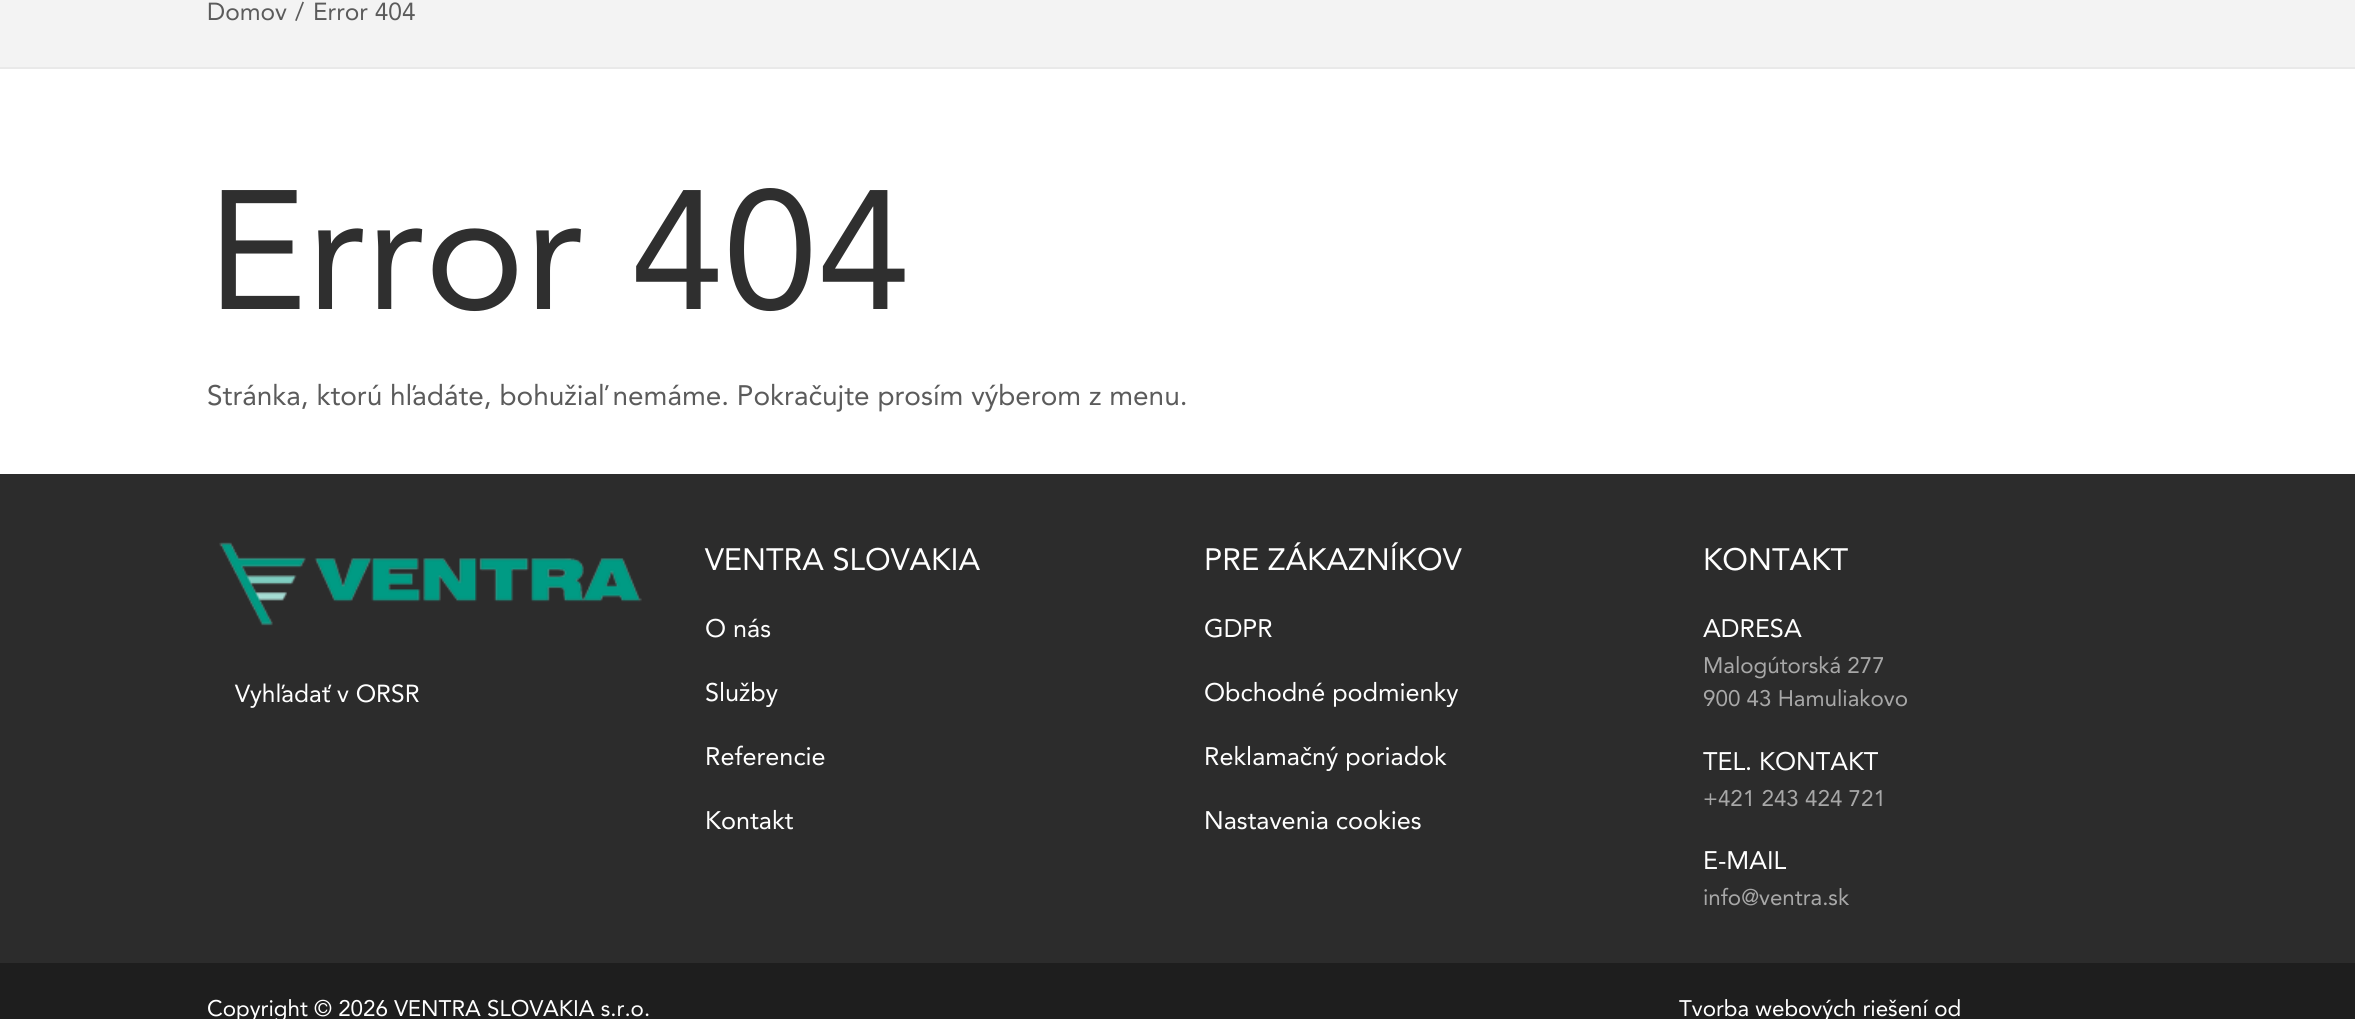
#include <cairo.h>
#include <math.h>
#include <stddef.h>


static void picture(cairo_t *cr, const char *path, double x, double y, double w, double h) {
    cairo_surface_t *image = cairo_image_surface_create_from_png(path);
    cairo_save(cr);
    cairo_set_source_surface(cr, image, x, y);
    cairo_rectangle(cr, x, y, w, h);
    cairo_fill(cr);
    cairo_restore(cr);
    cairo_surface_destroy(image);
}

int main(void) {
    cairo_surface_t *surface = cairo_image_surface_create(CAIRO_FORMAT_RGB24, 2355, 1019);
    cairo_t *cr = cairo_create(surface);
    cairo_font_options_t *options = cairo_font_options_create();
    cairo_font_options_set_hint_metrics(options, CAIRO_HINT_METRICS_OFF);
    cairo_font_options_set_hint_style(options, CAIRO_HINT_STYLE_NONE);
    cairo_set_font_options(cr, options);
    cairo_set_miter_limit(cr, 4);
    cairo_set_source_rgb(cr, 1, 1, 1);
    cairo_paint(cr);
    cairo_set_source_rgb(cr, 0.953, 0.953, 0.953);
    cairo_rectangle(cr, 0, 0, 2355, 67);
    cairo_fill(cr);
    cairo_set_source_rgb(cr, 0.914, 0.914, 0.914);
    cairo_rectangle(cr, 0, 67, 2355, 2);
    cairo_fill(cr);
    cairo_select_font_face(cr, "Avenir", CAIRO_FONT_SLANT_NORMAL, CAIRO_FONT_WEIGHT_NORMAL);
    cairo_set_font_size(cr, 24.5);
    cairo_set_source_rgb(cr, 0.357, 0.357, 0.357);
    cairo_move_to(cr, 207, 20);
    cairo_show_text(cr, "Domov");
    cairo_move_to(cr, 295, 20);
    cairo_show_text(cr, "/");
    cairo_move_to(cr, 313, 20);
    cairo_show_text(cr, "Error 404");
    cairo_set_font_size(cr, 168);
    cairo_set_source_rgb(cr, 0.184, 0.184, 0.184);
    cairo_move_to(cr, 207, 309);
    cairo_show_text(cr, "Error 404");
    cairo_set_font_size(cr, 28);
    cairo_set_source_rgb(cr, 0.357, 0.357, 0.357);
    cairo_move_to(cr, 207, 405);
    cairo_show_text(cr, "Stránka, ktorú hľadáte, bohužiaľ nemáme. Pokračujte prosím výberom z menu.");
    cairo_set_source_rgb(cr, 0.173, 0.173, 0.173);
    cairo_rectangle(cr, 0, 474, 2355, 489);
    cairo_fill(cr);
    picture(cr, "img1.png", 219, 542, 423, 84);
    cairo_set_font_size(cr, 24.5);
    cairo_set_source_rgb(cr, 1, 1, 1);
    cairo_move_to(cr, 235, 702);
    cairo_show_text(cr, "Vyhľadať v ORSR");
    cairo_set_font_size(cr, 30.75);
    cairo_move_to(cr, 705, 570);
    cairo_show_text(cr, "VENTRA SLOVAKIA");
    cairo_set_font_size(cr, 25.25);
    cairo_move_to(cr, 705, 637);
    cairo_show_text(cr, "O nás");
    cairo_move_to(cr, 705, 701);
    cairo_show_text(cr, "Služby");
    cairo_move_to(cr, 705, 765);
    cairo_show_text(cr, "Referencie");
    cairo_move_to(cr, 705, 829);
    cairo_show_text(cr, "Kontakt");
    cairo_set_font_size(cr, 30.75);
    cairo_move_to(cr, 1204, 570);
    cairo_show_text(cr, "PRE ZÁKAZNÍKOV");
    cairo_set_font_size(cr, 25.25);
    cairo_move_to(cr, 1204, 637);
    cairo_show_text(cr, "GDPR");
    cairo_move_to(cr, 1204, 701);
    cairo_show_text(cr, "Obchodné podmienky");
    cairo_move_to(cr, 1204, 765);
    cairo_show_text(cr, "Reklamačný poriadok");
    cairo_move_to(cr, 1204, 829);
    cairo_show_text(cr, "Nastavenia cookies");
    cairo_set_font_size(cr, 30.75);
    cairo_move_to(cr, 1703, 570);
    cairo_show_text(cr, "KONTAKT");
    cairo_set_font_size(cr, 25.25);
    cairo_move_to(cr, 1703, 637);
    cairo_show_text(cr, "ADRESA");
    cairo_set_font_size(cr, 22.4);
    cairo_set_source_rgb(cr, 0.659, 0.659, 0.659);
    cairo_move_to(cr, 1703, 673);
    cairo_show_text(cr, "Malogútorská 277");
    cairo_move_to(cr, 1703, 706);
    cairo_show_text(cr, "900 43 Hamuliakovo");
    cairo_set_font_size(cr, 25.25);
    cairo_set_source_rgb(cr, 1, 1, 1);
    cairo_move_to(cr, 1703, 770);
    cairo_show_text(cr, "TEL. KONTAKT");
    cairo_set_font_size(cr, 22.4);
    cairo_set_source_rgb(cr, 0.659, 0.659, 0.659);
    cairo_move_to(cr, 1703, 806);
    cairo_show_text(cr, "+421 243 424 721");
    cairo_set_font_size(cr, 25.25);
    cairo_set_source_rgb(cr, 1, 1, 1);
    cairo_move_to(cr, 1703, 869);
    cairo_show_text(cr, "E-MAIL");
    cairo_set_font_size(cr, 22.4);
    cairo_set_source_rgb(cr, 0.659, 0.659, 0.659);
    cairo_move_to(cr, 1703, 905);
    cairo_show_text(cr, "info@ventra.sk");
    cairo_set_source_rgb(cr, 0.118, 0.118, 0.118);
    cairo_rectangle(cr, 0, 963, 2355, 56);
    cairo_fill(cr);
    cairo_set_source_rgb(cr, 1, 1, 1);
    cairo_move_to(cr, 207, 1016);
    cairo_show_text(cr, "Copyright © 2026 VENTRA SLOVAKIA s.r.o.");
    cairo_move_to(cr, 1679, 1016);
    cairo_show_text(cr, "Tvorba webových riešení od");
    cairo_surface_write_to_png(surface, "page.png");
    cairo_font_options_destroy(options);
    cairo_destroy(cr);
    cairo_surface_destroy(surface);
    return 0;
}
